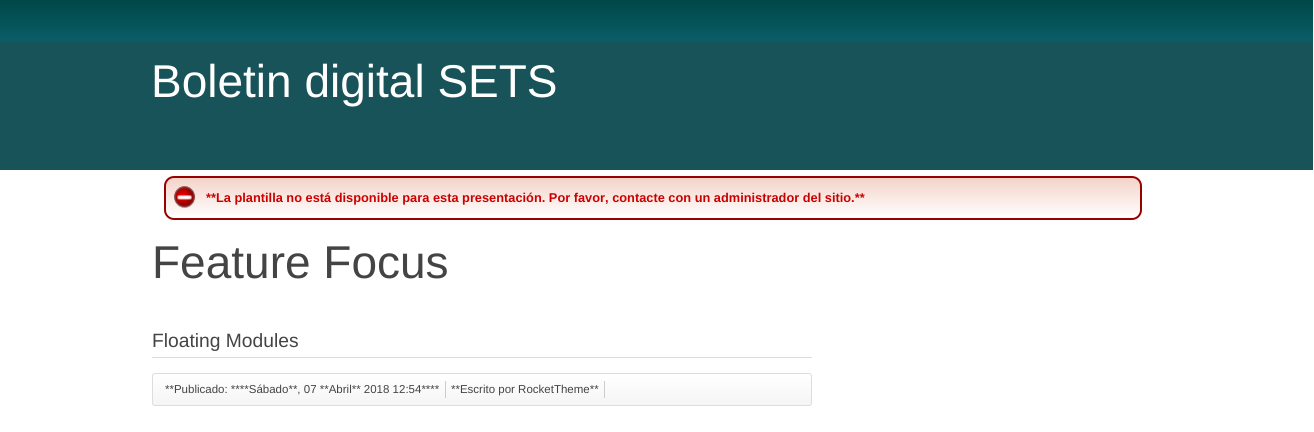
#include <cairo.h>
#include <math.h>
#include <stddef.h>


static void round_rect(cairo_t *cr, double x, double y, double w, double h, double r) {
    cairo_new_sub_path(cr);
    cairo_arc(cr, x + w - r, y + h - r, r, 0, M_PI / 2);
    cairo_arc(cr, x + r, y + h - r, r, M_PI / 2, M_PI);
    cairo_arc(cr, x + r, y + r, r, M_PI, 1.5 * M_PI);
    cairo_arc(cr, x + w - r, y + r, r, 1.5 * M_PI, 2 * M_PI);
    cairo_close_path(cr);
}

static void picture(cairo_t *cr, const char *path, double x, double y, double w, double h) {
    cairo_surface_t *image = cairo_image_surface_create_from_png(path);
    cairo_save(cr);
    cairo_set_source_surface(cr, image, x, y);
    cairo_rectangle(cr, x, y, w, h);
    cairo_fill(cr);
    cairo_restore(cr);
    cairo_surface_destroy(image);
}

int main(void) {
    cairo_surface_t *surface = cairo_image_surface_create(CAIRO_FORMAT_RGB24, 1314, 432);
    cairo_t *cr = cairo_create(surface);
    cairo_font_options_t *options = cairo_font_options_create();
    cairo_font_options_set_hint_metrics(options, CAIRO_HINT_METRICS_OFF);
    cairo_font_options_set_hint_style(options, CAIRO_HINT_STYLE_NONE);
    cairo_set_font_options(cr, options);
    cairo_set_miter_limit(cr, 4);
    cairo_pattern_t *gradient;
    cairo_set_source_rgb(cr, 1, 1, 1);
    cairo_paint(cr);
    gradient = cairo_pattern_create_linear(657, 0, 657, 170);
    cairo_pattern_add_color_stop_rgba(gradient, 0, 0, 0.278, 0.275, 1);
    cairo_pattern_add_color_stop_rgba(gradient, 0.25, 0.039, 0.369, 0.412, 1);
    cairo_pattern_add_color_stop_rgba(gradient, 0.25, 0.094, 0.325, 0.349, 1);
    cairo_set_source(cr, gradient);
    cairo_pattern_destroy(gradient);
    cairo_rectangle(cr, 0, 0, 1313, 170);
    cairo_fill(cr);
    cairo_select_font_face(cr, "Liberation Sans", CAIRO_FONT_SLANT_NORMAL, CAIRO_FONT_WEIGHT_NORMAL);
    cairo_set_font_size(cr, 46);
    cairo_set_source_rgb(cr, 1, 1, 1);
    cairo_move_to(cr, 151, 97);
    cairo_show_text(cr, "Boletin digital SETS");
    picture(cr, "img1.png", 166, 178, 976, 37);
    round_rect(cr, 165, 177, 976, 42, 9);
    cairo_set_source_rgb(cr, 0.6, 0, 0);
    cairo_stroke(cr);
    cairo_select_font_face(cr, "Liberation Sans", CAIRO_FONT_SLANT_NORMAL, CAIRO_FONT_WEIGHT_BOLD);
    cairo_set_font_size(cr, 12.8);
    cairo_set_source_rgb(cr, 0.8, 0, 0);
    cairo_move_to(cr, 206, 202);
    cairo_show_text(cr, "**La plantilla no está disponible para esta presentación. Por favor, contacte con un administrador del sitio.**");
    cairo_select_font_face(cr, "Liberation Sans", CAIRO_FONT_SLANT_NORMAL, CAIRO_FONT_WEIGHT_NORMAL);
    cairo_set_font_size(cr, 46);
    cairo_set_source_rgb(cr, 0.267, 0.267, 0.267);
    cairo_move_to(cr, 152, 278);
    cairo_show_text(cr, "Feature Focus");
    cairo_set_source_rgb(cr, 0.867, 0.867, 0.867);
    cairo_rectangle(cr, 152, 357, 660, 1);
    cairo_fill(cr);
    cairo_set_font_size(cr, 19.25);
    cairo_set_source_rgb(cr, 0.267, 0.267, 0.267);
    cairo_move_to(cr, 152, 347);
    cairo_show_text(cr, "Floating Modules");
    cairo_save(cr);
    round_rect(cr, 152, 373, 660, 33, 3);
    cairo_clip(cr);
    gradient = cairo_pattern_create_linear(482, 374, 482, 405);
    cairo_pattern_add_color_stop_rgba(gradient, 0, 1, 1, 1, 1);
    cairo_pattern_add_color_stop_rgba(gradient, 1, 0.961, 0.961, 0.961, 1);
    cairo_set_source(cr, gradient);
    cairo_pattern_destroy(gradient);
    cairo_rectangle(cr, 152, 374, 660, 31);
    cairo_fill(cr);
    cairo_restore(cr);
    round_rect(cr, 152.5, 373.5, 659, 32, 2.5);
    cairo_set_source_rgb(cr, 0.867, 0.867, 0.867);
    cairo_set_line_width(cr, 1);
    cairo_stroke(cr);
    cairo_set_source_rgb(cr, 0.8, 0.8, 0.8);
    cairo_rectangle(cr, 445, 381, 1, 17);
    cairo_fill(cr);
    cairo_set_font_size(cr, 11.5);
    cairo_set_source_rgb(cr, 0.267, 0.267, 0.267);
    cairo_move_to(cr, 165, 393);
    cairo_show_text(cr, "**Publicado: ****Sábado**, 07 **Abril** 2018 12:54****");
    cairo_set_source_rgb(cr, 0.8, 0.8, 0.8);
    cairo_rectangle(cr, 604, 381, 1, 17);
    cairo_fill(cr);
    cairo_set_source_rgb(cr, 0.267, 0.267, 0.267);
    cairo_move_to(cr, 451, 393);
    cairo_show_text(cr, "**Escrito por RocketTheme**");
    cairo_surface_write_to_png(surface, "page.png");
    cairo_font_options_destroy(options);
    cairo_destroy(cr);
    cairo_surface_destroy(surface);
    return 0;
}
